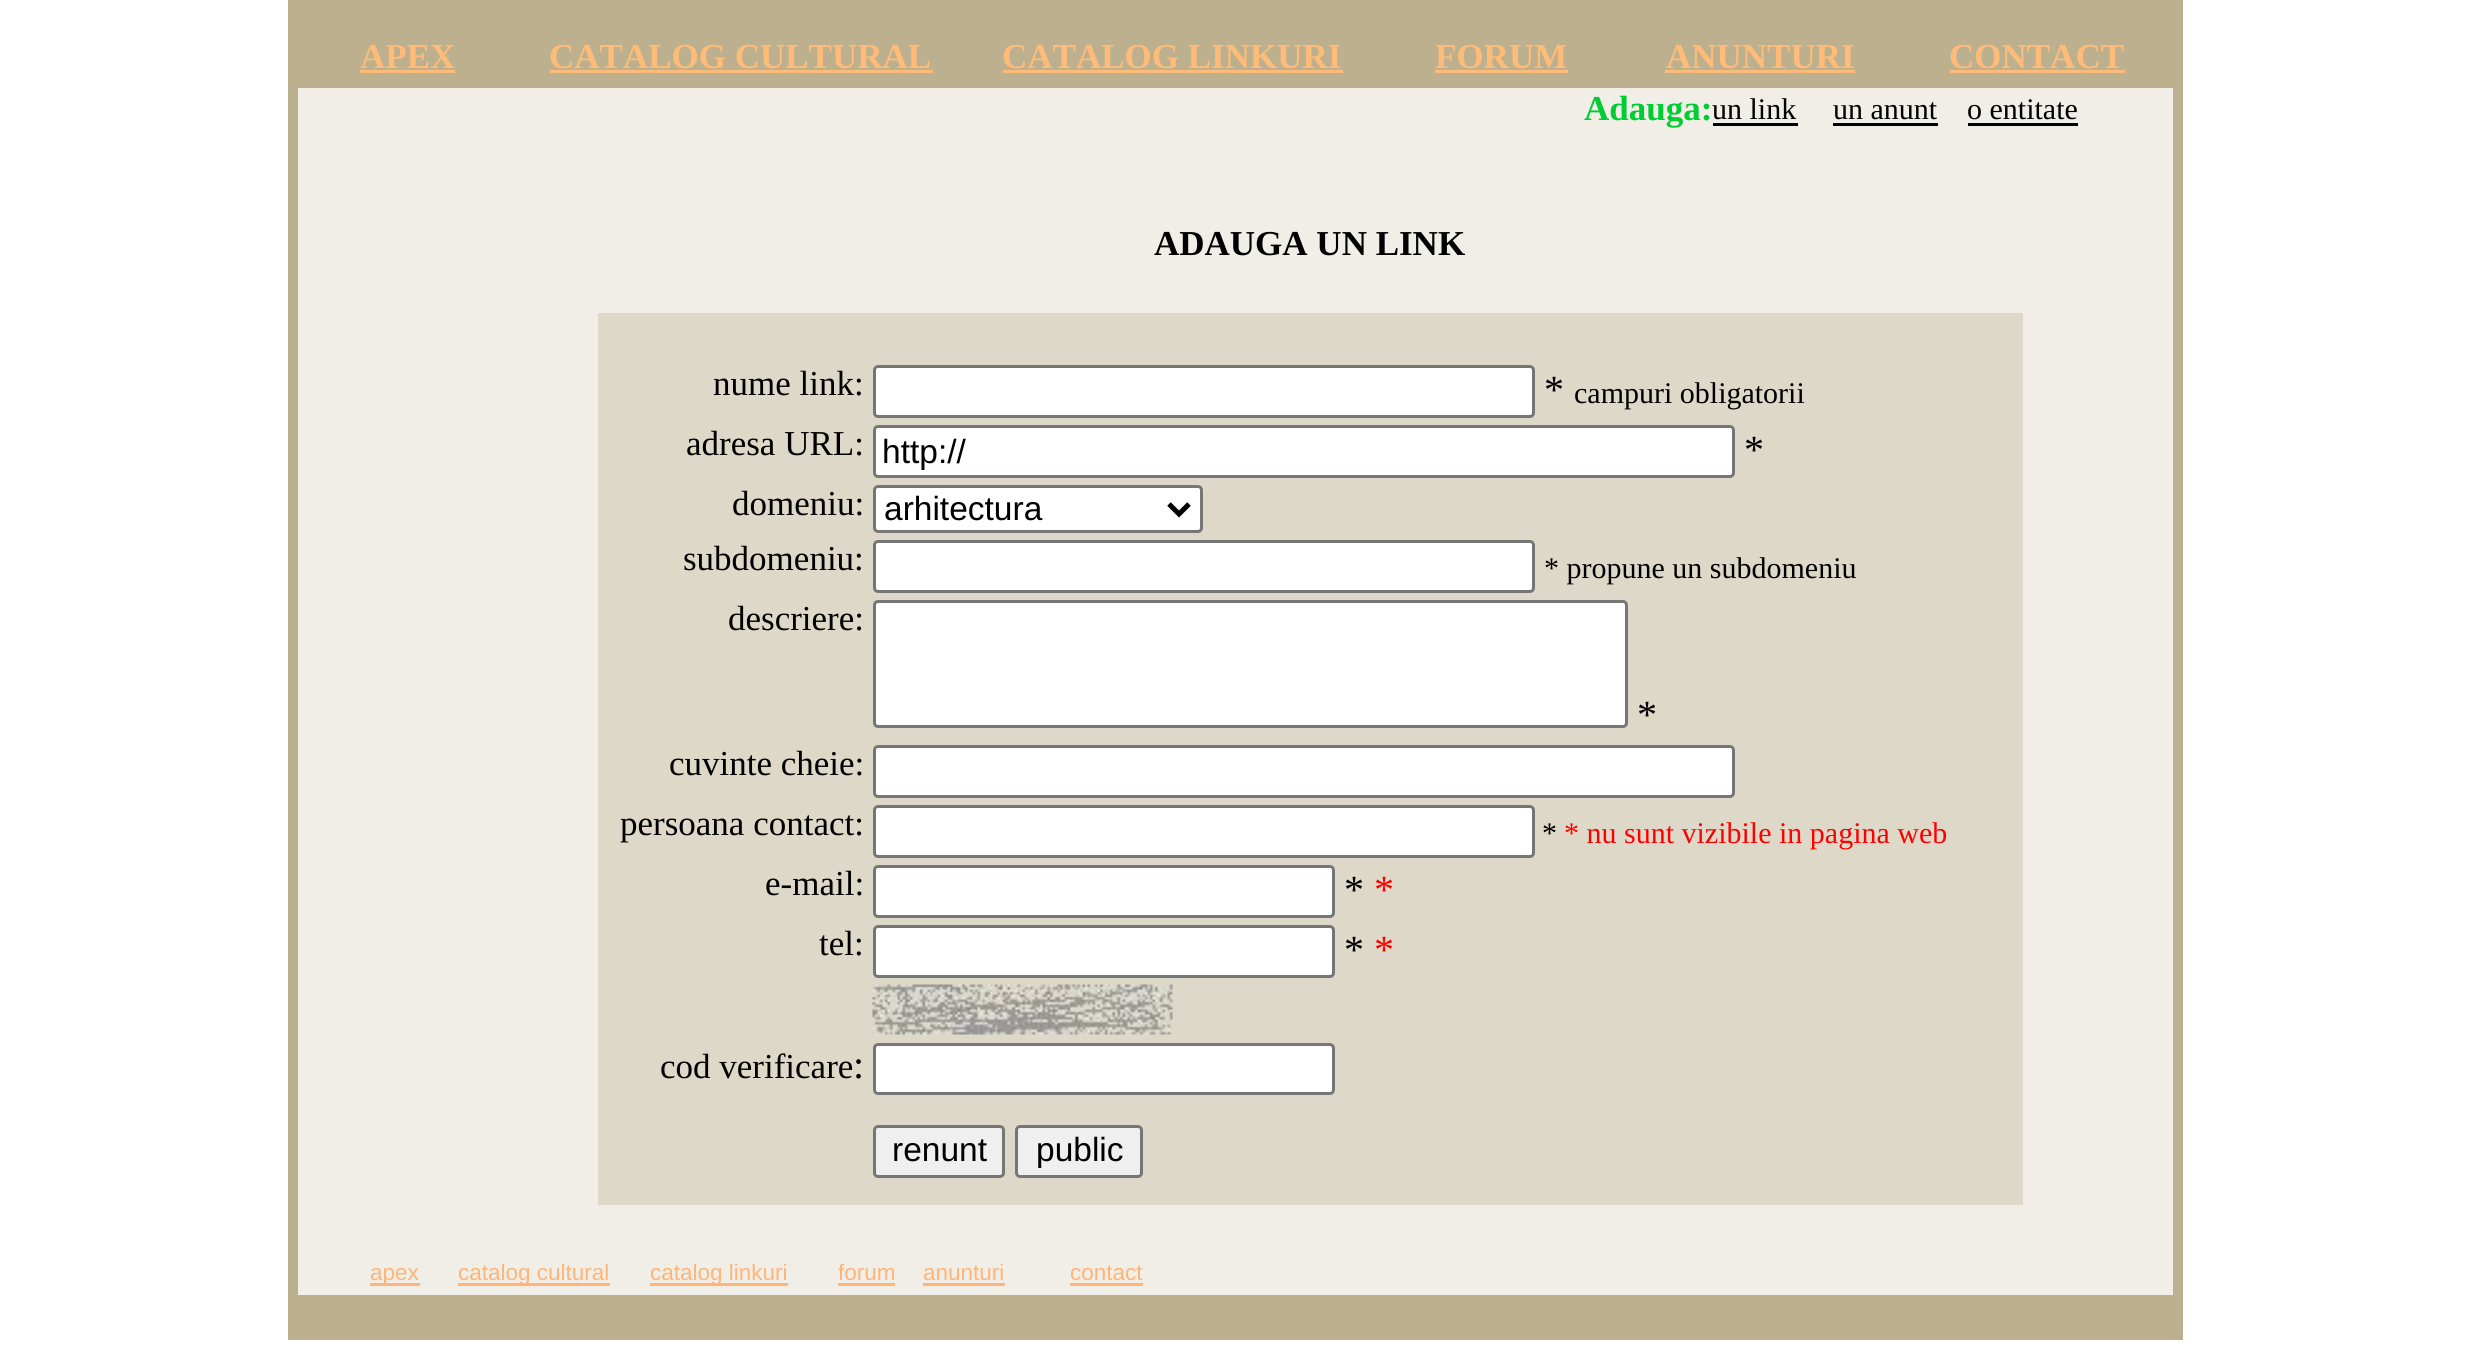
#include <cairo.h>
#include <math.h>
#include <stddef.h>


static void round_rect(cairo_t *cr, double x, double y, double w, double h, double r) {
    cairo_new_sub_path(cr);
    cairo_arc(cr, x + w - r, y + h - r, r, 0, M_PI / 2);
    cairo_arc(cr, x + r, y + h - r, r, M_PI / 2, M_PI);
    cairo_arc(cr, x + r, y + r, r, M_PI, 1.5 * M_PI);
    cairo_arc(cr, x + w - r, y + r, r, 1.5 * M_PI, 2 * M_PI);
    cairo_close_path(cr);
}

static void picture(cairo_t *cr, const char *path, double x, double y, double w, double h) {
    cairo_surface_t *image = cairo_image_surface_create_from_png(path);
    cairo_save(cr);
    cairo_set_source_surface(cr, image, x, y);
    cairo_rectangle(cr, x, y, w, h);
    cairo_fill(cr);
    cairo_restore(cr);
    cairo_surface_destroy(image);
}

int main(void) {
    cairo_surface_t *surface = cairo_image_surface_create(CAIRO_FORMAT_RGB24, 2468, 1359);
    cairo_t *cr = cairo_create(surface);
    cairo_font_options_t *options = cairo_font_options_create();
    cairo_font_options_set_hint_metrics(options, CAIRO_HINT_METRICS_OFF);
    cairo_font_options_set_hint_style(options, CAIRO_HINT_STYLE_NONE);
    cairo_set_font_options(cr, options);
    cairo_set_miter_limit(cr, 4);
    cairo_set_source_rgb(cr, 1, 1, 1);
    cairo_paint(cr);
    cairo_set_source_rgb(cr, 0.945, 0.933, 0.906);
    cairo_rectangle(cr, 298, 88, 1875, 1207);
    cairo_fill(cr);
    cairo_set_source_rgb(cr, 0.741, 0.69, 0.557);
    cairo_rectangle(cr, 288, 0, 1895, 28);
    cairo_fill(cr);
    cairo_rectangle(cr, 288, 28, 10, 1312);
    cairo_fill(cr);
    cairo_rectangle(cr, 298, 28, 1875, 60);
    cairo_fill(cr);
    cairo_select_font_face(cr, "Liberation Serif", CAIRO_FONT_SLANT_NORMAL, CAIRO_FONT_WEIGHT_BOLD);
    cairo_set_font_size(cr, 35);
    cairo_set_source_rgb(cr, 1, 0.737, 0.475);
    cairo_move_to(cr, 360, 68);
    cairo_show_text(cr, "APEX");
    cairo_rectangle(cr, 360, 70, 95, 3);
    cairo_fill(cr);
    cairo_move_to(cr, 549, 68);
    cairo_show_text(cr, "CATALOG CULTURAL");
    cairo_rectangle(cr, 550, 70, 383, 3);
    cairo_fill(cr);
    cairo_move_to(cr, 1002, 68);
    cairo_show_text(cr, "CATALOG LINKURI");
    cairo_rectangle(cr, 1003, 70, 340, 3);
    cairo_fill(cr);
    cairo_move_to(cr, 1435, 68);
    cairo_show_text(cr, "FORUM");
    cairo_rectangle(cr, 1435, 70, 133, 3);
    cairo_fill(cr);
    cairo_move_to(cr, 1666, 68);
    cairo_show_text(cr, "ANUNTURI");
    cairo_rectangle(cr, 1665, 70, 190, 3);
    cairo_fill(cr);
    cairo_move_to(cr, 1949, 68);
    cairo_show_text(cr, "CONTACT");
    cairo_rectangle(cr, 1950, 70, 175, 3);
    cairo_fill(cr);
    cairo_set_source_rgb(cr, 0, 0.8, 0.2);
    cairo_move_to(cr, 1584, 120);
    cairo_show_text(cr, "Adauga:");
    cairo_select_font_face(cr, "Liberation Serif", CAIRO_FONT_SLANT_NORMAL, CAIRO_FONT_WEIGHT_NORMAL);
    cairo_set_font_size(cr, 30);
    cairo_set_source_rgb(cr, 0, 0, 0);
    cairo_move_to(cr, 1712, 119);
    cairo_show_text(cr, "un link");
    cairo_rectangle(cr, 1713, 123, 85, 3);
    cairo_fill(cr);
    cairo_move_to(cr, 1833, 119);
    cairo_show_text(cr, "un anunt");
    cairo_rectangle(cr, 1833, 123, 105, 3);
    cairo_fill(cr);
    cairo_move_to(cr, 1967, 119);
    cairo_show_text(cr, "o entitate");
    cairo_rectangle(cr, 1968, 123, 110, 3);
    cairo_fill(cr);
    cairo_set_source_rgb(cr, 0.741, 0.69, 0.557);
    cairo_rectangle(cr, 2173, 28, 10, 1267);
    cairo_fill(cr);
    cairo_select_font_face(cr, "Liberation Serif", CAIRO_FONT_SLANT_NORMAL, CAIRO_FONT_WEIGHT_BOLD);
    cairo_set_font_size(cr, 35);
    cairo_set_source_rgb(cr, 0, 0, 0);
    cairo_move_to(cr, 1154, 255);
    cairo_show_text(cr, "ADAUGA UN LINK");
    cairo_set_source_rgb(cr, 0.871, 0.847, 0.784);
    cairo_rectangle(cr, 598, 313, 1425, 892);
    cairo_fill(cr);
    cairo_select_font_face(cr, "Liberation Serif", CAIRO_FONT_SLANT_NORMAL, CAIRO_FONT_WEIGHT_NORMAL);
    cairo_set_source_rgb(cr, 0, 0, 0);
    cairo_move_to(cr, 713, 395);
    cairo_show_text(cr, "nume link:");
    cairo_set_source_rgb(cr, 1, 1, 1);
    round_rect(cr, 874.5, 366.5, 659, 50, 3.5);
    cairo_fill_preserve(cr);
    cairo_set_source_rgb(cr, 0.463, 0.463, 0.463);
    cairo_set_line_width(cr, 3);
    cairo_stroke(cr);
    cairo_set_font_size(cr, 40);
    cairo_set_source_rgb(cr, 0, 0, 0);
    cairo_move_to(cr, 1544, 403);
    cairo_show_text(cr, "*");
    cairo_set_font_size(cr, 30);
    cairo_move_to(cr, 1574, 403);
    cairo_show_text(cr, "campuri obligatorii");
    cairo_set_font_size(cr, 35);
    cairo_move_to(cr, 686, 455);
    cairo_show_text(cr, "adresa URL:");
    cairo_set_source_rgb(cr, 1, 1, 1);
    round_rect(cr, 874.5, 426.5, 859, 50, 3.5);
    cairo_fill_preserve(cr);
    cairo_set_source_rgb(cr, 0.463, 0.463, 0.463);
    cairo_stroke(cr);
    cairo_select_font_face(cr, "Liberation Sans", CAIRO_FONT_SLANT_NORMAL, CAIRO_FONT_WEIGHT_NORMAL);
    cairo_set_font_size(cr, 33.5);
    cairo_set_source_rgb(cr, 0, 0, 0);
    cairo_move_to(cr, 882, 463);
    cairo_show_text(cr, "http://");
    cairo_select_font_face(cr, "Liberation Serif", CAIRO_FONT_SLANT_NORMAL, CAIRO_FONT_WEIGHT_NORMAL);
    cairo_set_font_size(cr, 40);
    cairo_move_to(cr, 1744, 463);
    cairo_show_text(cr, "*");
    cairo_set_font_size(cr, 35);
    cairo_move_to(cr, 732, 515);
    cairo_show_text(cr, "domeniu:");
    cairo_set_source_rgb(cr, 1, 1, 1);
    round_rect(cr, 874.5, 486.5, 327, 45, 3.5);
    cairo_fill_preserve(cr);
    cairo_set_source_rgb(cr, 0.463, 0.463, 0.463);
    cairo_stroke(cr);
    cairo_new_path(cr);
    cairo_move_to(cr, 1169, 504);
    cairo_line_to(cr, 1179, 514);
    cairo_line_to(cr, 1189, 504);
    cairo_set_source_rgb(cr, 0, 0, 0);
    cairo_set_line_width(cr, 5);
    cairo_stroke(cr);
    cairo_select_font_face(cr, "Liberation Sans", CAIRO_FONT_SLANT_NORMAL, CAIRO_FONT_WEIGHT_NORMAL);
    cairo_set_font_size(cr, 33.5);
    cairo_move_to(cr, 884, 520);
    cairo_show_text(cr, "arhitectura");
    cairo_select_font_face(cr, "Liberation Serif", CAIRO_FONT_SLANT_NORMAL, CAIRO_FONT_WEIGHT_NORMAL);
    cairo_set_font_size(cr, 35);
    cairo_move_to(cr, 683, 570);
    cairo_show_text(cr, "subdomeniu:");
    cairo_set_source_rgb(cr, 1, 1, 1);
    round_rect(cr, 874.5, 541.5, 659, 50, 3.5);
    cairo_fill_preserve(cr);
    cairo_set_source_rgb(cr, 0.463, 0.463, 0.463);
    cairo_set_line_width(cr, 3);
    cairo_stroke(cr);
    cairo_set_font_size(cr, 30);
    cairo_set_source_rgb(cr, 0, 0, 0);
    cairo_move_to(cr, 1544, 578);
    cairo_show_text(cr, "* propune un subdomeniu");
    cairo_set_font_size(cr, 35);
    cairo_move_to(cr, 728, 630);
    cairo_show_text(cr, "descriere:");
    cairo_set_source_rgb(cr, 1, 1, 1);
    round_rect(cr, 874.5, 601.5, 752, 125, 3.5);
    cairo_fill_preserve(cr);
    cairo_set_source_rgb(cr, 0.463, 0.463, 0.463);
    cairo_stroke(cr);
    cairo_set_font_size(cr, 40);
    cairo_set_source_rgb(cr, 0, 0, 0);
    cairo_move_to(cr, 1637, 728);
    cairo_show_text(cr, "*");
    cairo_set_font_size(cr, 35);
    cairo_move_to(cr, 669, 775);
    cairo_show_text(cr, "cuvinte cheie:");
    cairo_set_source_rgb(cr, 1, 1, 1);
    round_rect(cr, 874.5, 746.5, 859, 50, 3.5);
    cairo_fill_preserve(cr);
    cairo_set_source_rgb(cr, 0.463, 0.463, 0.463);
    cairo_stroke(cr);
    cairo_set_source_rgb(cr, 0, 0, 0);
    cairo_move_to(cr, 620, 835);
    cairo_show_text(cr, "persoana contact:");
    cairo_set_source_rgb(cr, 1, 1, 1);
    round_rect(cr, 874.5, 806.5, 659, 50, 3.5);
    cairo_fill_preserve(cr);
    cairo_set_source_rgb(cr, 0.463, 0.463, 0.463);
    cairo_stroke(cr);
    cairo_set_font_size(cr, 30);
    cairo_set_source_rgb(cr, 0, 0, 0);
    cairo_move_to(cr, 1542, 843);
    cairo_show_text(cr, "*");
    cairo_set_source_rgb(cr, 1, 0, 0);
    cairo_move_to(cr, 1564, 843);
    cairo_show_text(cr, "* nu sunt vizibile in pagina web");
    cairo_set_font_size(cr, 35);
    cairo_set_source_rgb(cr, 0, 0, 0);
    cairo_move_to(cr, 765, 895);
    cairo_show_text(cr, "e-mail:");
    cairo_set_source_rgb(cr, 1, 1, 1);
    round_rect(cr, 874.5, 866.5, 459, 50, 3.5);
    cairo_fill_preserve(cr);
    cairo_set_source_rgb(cr, 0.463, 0.463, 0.463);
    cairo_stroke(cr);
    cairo_set_font_size(cr, 40);
    cairo_set_source_rgb(cr, 0, 0, 0);
    cairo_move_to(cr, 1344, 903);
    cairo_show_text(cr, "*");
    cairo_set_source_rgb(cr, 1, 0, 0);
    cairo_move_to(cr, 1374, 903);
    cairo_show_text(cr, "*");
    cairo_set_font_size(cr, 35);
    cairo_set_source_rgb(cr, 0, 0, 0);
    cairo_move_to(cr, 819, 955);
    cairo_show_text(cr, "tel:");
    cairo_set_source_rgb(cr, 1, 1, 1);
    round_rect(cr, 874.5, 926.5, 459, 50, 3.5);
    cairo_fill_preserve(cr);
    cairo_set_source_rgb(cr, 0.463, 0.463, 0.463);
    cairo_stroke(cr);
    cairo_set_font_size(cr, 40);
    cairo_set_source_rgb(cr, 0, 0, 0);
    cairo_move_to(cr, 1344, 963);
    cairo_show_text(cr, "*");
    cairo_set_source_rgb(cr, 1, 0, 0);
    cairo_move_to(cr, 1374, 963);
    cairo_show_text(cr, "*");
    picture(cr, "img1.png", 872, 984, 301, 51);
    cairo_set_font_size(cr, 35);
    cairo_set_source_rgb(cr, 0, 0, 0);
    cairo_move_to(cr, 660, 1078);
    cairo_show_text(cr, "cod verificare");
    cairo_set_font_size(cr, 40);
    cairo_move_to(cr, 853, 1078);
    cairo_show_text(cr, ":");
    cairo_set_source_rgb(cr, 1, 1, 1);
    round_rect(cr, 874.5, 1044.5, 459, 49, 3.5);
    cairo_fill_preserve(cr);
    cairo_set_source_rgb(cr, 0.463, 0.463, 0.463);
    cairo_stroke(cr);
    cairo_set_source_rgb(cr, 0.937, 0.937, 0.937);
    round_rect(cr, 874.5, 1126.5, 129, 50, 3.5);
    cairo_fill_preserve(cr);
    cairo_set_source_rgb(cr, 0.463, 0.463, 0.463);
    cairo_stroke(cr);
    cairo_select_font_face(cr, "Liberation Sans", CAIRO_FONT_SLANT_NORMAL, CAIRO_FONT_WEIGHT_NORMAL);
    cairo_set_font_size(cr, 33.5);
    cairo_set_source_rgb(cr, 0, 0, 0);
    cairo_move_to(cr, 892, 1161);
    cairo_show_text(cr, "renunt");
    cairo_set_source_rgb(cr, 0.937, 0.937, 0.937);
    round_rect(cr, 1016.5, 1126.5, 125, 50, 3.5);
    cairo_fill_preserve(cr);
    cairo_set_source_rgb(cr, 0.463, 0.463, 0.463);
    cairo_stroke(cr);
    cairo_set_source_rgb(cr, 0, 0, 0);
    cairo_move_to(cr, 1036, 1161);
    cairo_show_text(cr, "public");
    cairo_set_source_rgb(cr, 1, 0.706, 0.471);
    cairo_rectangle(cr, 370, 1283, 50, 3);
    cairo_fill(cr);
    cairo_set_font_size(cr, 22.5);
    cairo_move_to(cr, 370, 1280);
    cairo_show_text(cr, "apex");
    cairo_rectangle(cr, 458, 1283, 152, 3);
    cairo_fill(cr);
    cairo_move_to(cr, 458, 1280);
    cairo_show_text(cr, "catalog cultural");
    cairo_rectangle(cr, 650, 1283, 138, 3);
    cairo_fill(cr);
    cairo_move_to(cr, 650, 1280);
    cairo_show_text(cr, "catalog linkuri");
    cairo_move_to(cr, 838, 1280);
    cairo_show_text(cr, "forum");
    cairo_rectangle(cr, 838, 1283, 57, 3);
    cairo_fill(cr);
    cairo_move_to(cr, 923, 1280);
    cairo_show_text(cr, "anunturi");
    cairo_rectangle(cr, 923, 1283, 82, 3);
    cairo_fill(cr);
    cairo_move_to(cr, 1070, 1280);
    cairo_show_text(cr, "contact");
    cairo_rectangle(cr, 1070, 1283, 73, 3);
    cairo_fill(cr);
    cairo_set_source_rgb(cr, 0.741, 0.69, 0.557);
    cairo_rectangle(cr, 298, 1295, 1885, 45);
    cairo_fill(cr);
    cairo_surface_write_to_png(surface, "page.png");
    cairo_font_options_destroy(options);
    cairo_destroy(cr);
    cairo_surface_destroy(surface);
    return 0;
}
